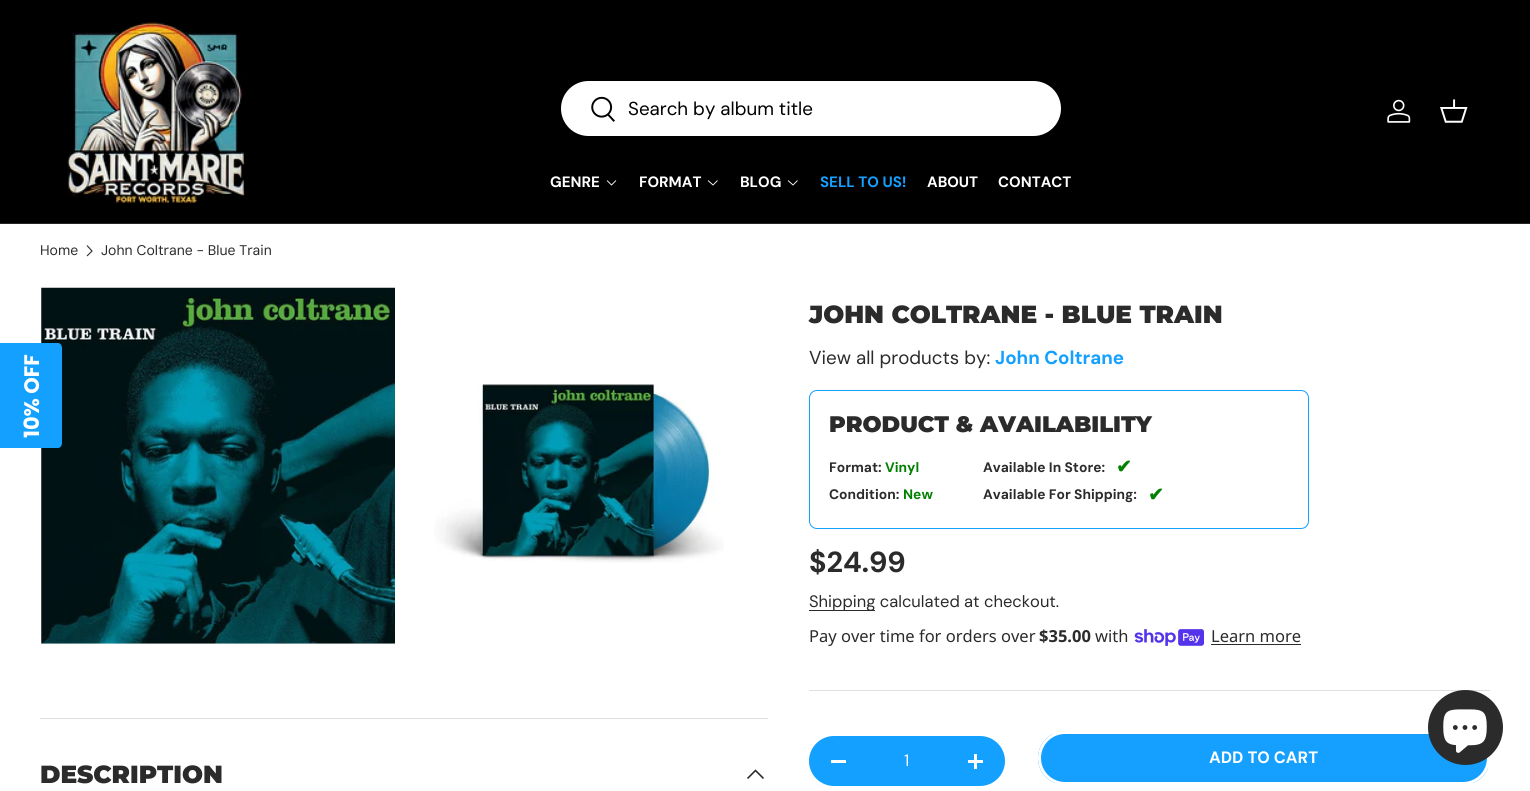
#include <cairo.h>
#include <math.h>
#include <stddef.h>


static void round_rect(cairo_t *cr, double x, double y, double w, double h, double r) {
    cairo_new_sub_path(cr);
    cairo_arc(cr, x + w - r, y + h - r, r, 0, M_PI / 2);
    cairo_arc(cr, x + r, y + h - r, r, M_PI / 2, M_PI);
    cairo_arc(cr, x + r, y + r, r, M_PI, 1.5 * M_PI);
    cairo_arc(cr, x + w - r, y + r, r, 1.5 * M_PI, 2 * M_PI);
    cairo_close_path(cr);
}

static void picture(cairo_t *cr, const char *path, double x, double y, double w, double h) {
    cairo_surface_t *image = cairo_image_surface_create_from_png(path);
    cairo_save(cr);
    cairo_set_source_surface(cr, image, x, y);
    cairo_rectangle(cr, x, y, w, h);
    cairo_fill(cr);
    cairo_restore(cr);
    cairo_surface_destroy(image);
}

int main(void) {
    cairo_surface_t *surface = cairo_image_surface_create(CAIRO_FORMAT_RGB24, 1530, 791);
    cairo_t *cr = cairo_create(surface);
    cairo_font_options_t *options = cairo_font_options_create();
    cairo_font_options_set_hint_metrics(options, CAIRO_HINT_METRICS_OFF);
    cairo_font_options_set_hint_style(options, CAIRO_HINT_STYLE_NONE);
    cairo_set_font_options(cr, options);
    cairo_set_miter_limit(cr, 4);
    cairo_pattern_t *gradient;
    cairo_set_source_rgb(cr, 1, 1, 1);
    cairo_paint(cr);
    cairo_set_source_rgb(cr, 0, 0, 0);
    cairo_rectangle(cr, 0, 0, 1530, 223);
    cairo_fill(cr);
    cairo_set_source_rgb(cr, 0.149, 0.149, 0.149);
    cairo_rectangle(cr, 0, 223, 1530, 1);
    cairo_fill(cr);
    picture(cr, "img1.png", 67, 18, 179, 186);
    cairo_set_source_rgb(cr, 1, 1, 1);
    round_rect(cr, 561, 81, 500, 55, 27.5);
    cairo_fill(cr);
    picture(cr, "img2.png", 591, 96, 24, 26);
    cairo_select_font_face(cr, "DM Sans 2", CAIRO_FONT_SLANT_NORMAL, CAIRO_FONT_WEIGHT_NORMAL);
    cairo_set_font_size(cr, 18.75);
    cairo_set_source_rgb(cr, 0, 0, 0);
    cairo_move_to(cr, 628, 115);
    cairo_show_text(cr, "Search by album title");
    picture(cr, "img3.png", 1387, 99, 24, 24);
    picture(cr, "img4.png", 1440, 99, 28, 24);
    cairo_select_font_face(cr, "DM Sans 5", CAIRO_FONT_SLANT_NORMAL, CAIRO_FONT_WEIGHT_BOLD);
    cairo_set_font_size(cr, 15);
    cairo_set_source_rgb(cr, 1, 1, 1);
    cairo_move_to(cr, 550, 187);
    cairo_show_text(cr, "GENRE");
    cairo_new_path(cr);
    cairo_move_to(cr, 616, 180.5);
    cairo_line_to(cr, 611.5, 185);
    cairo_line_to(cr, 607, 180.5);
    cairo_set_line_width(cr, 0.9);
    cairo_stroke(cr);
    cairo_move_to(cr, 639, 187);
    cairo_show_text(cr, "FORMAT");
    cairo_new_path(cr);
    cairo_move_to(cr, 717.5, 180.5);
    cairo_line_to(cr, 713, 185);
    cairo_line_to(cr, 708, 180.5);
    cairo_stroke(cr);
    cairo_move_to(cr, 740, 187);
    cairo_show_text(cr, "BLOG");
    cairo_new_path(cr);
    cairo_move_to(cr, 797.5, 180.5);
    cairo_line_to(cr, 793, 185);
    cairo_line_to(cr, 788, 180.5);
    cairo_stroke(cr);
    cairo_set_source_rgb(cr, 0.082, 0.627, 1);
    cairo_move_to(cr, 820, 187);
    cairo_show_text(cr, "SELL TO US!");
    cairo_set_source_rgb(cr, 1, 1, 1);
    cairo_move_to(cr, 927, 187);
    cairo_show_text(cr, "ABOUT");
    cairo_move_to(cr, 998, 187);
    cairo_show_text(cr, "CONTACT");
    picture(cr, "img5.png", 41, 287, 354, 357);
    cairo_set_source_rgb(cr, 0.082, 0.627, 1);
    cairo_new_path(cr);
    cairo_move_to(cr, 0, 448);
    cairo_line_to(cr, 0, 343);
    cairo_line_to(cr, 58, 343);
    cairo_curve_to(cr, 60, 343, 62, 345, 62, 348);
    cairo_line_to(cr, 62, 443);
    cairo_curve_to(cr, 62, 446, 60, 448, 58, 448);
    cairo_close_path(cr);
    cairo_fill(cr);
    cairo_select_font_face(cr, "Poppins", CAIRO_FONT_SLANT_NORMAL, CAIRO_FONT_WEIGHT_BOLD);
    cairo_set_font_size(cr, 21);
    cairo_set_source_rgb(cr, 1, 1, 1);
    cairo_save(cr);
    cairo_translate(cr, 39, 438);
    cairo_rotate(cr, -90 * M_PI / 180);
    cairo_move_to(cr, 0, 0);
    cairo_show_text(cr, "10% OFF");
    cairo_restore(cr);
    cairo_select_font_face(cr, "DM Sans", CAIRO_FONT_SLANT_NORMAL, CAIRO_FONT_WEIGHT_NORMAL);
    cairo_set_font_size(cr, 14);
    cairo_set_source_rgb(cr, 0.165, 0.169, 0.165);
    cairo_move_to(cr, 40, 255);
    cairo_show_text(cr, "Home");
    cairo_new_path(cr);
    cairo_move_to(cr, 87, 245.5);
    cairo_line_to(cr, 92, 251);
    cairo_line_to(cr, 87, 256);
    cairo_set_line_width(cr, 1.1);
    cairo_stroke(cr);
    cairo_move_to(cr, 101, 255);
    cairo_show_text(cr, "John Coltrane - Blue Train");
    picture(cr, "img6.png", 434, 383, 290, 180);
    cairo_select_font_face(cr, "Montserrat Black", CAIRO_FONT_SLANT_NORMAL, CAIRO_FONT_WEIGHT_NORMAL);
    cairo_set_font_size(cr, 24.75);
    cairo_move_to(cr, 809, 323);
    cairo_show_text(cr, "JOHN COLTRANE - BLUE TRAIN");
    cairo_select_font_face(cr, "DM Sans 2", CAIRO_FONT_SLANT_NORMAL, CAIRO_FONT_WEIGHT_NORMAL);
    cairo_set_font_size(cr, 18.75);
    cairo_move_to(cr, 809, 364);
    cairo_show_text(cr, "View all products by:");
    cairo_select_font_face(cr, "DM Sans", CAIRO_FONT_SLANT_NORMAL, CAIRO_FONT_WEIGHT_BOLD);
    cairo_set_source_rgb(cr, 0.082, 0.627, 1);
    cairo_move_to(cr, 995, 364);
    cairo_show_text(cr, "John Coltrane");
    round_rect(cr, 809.5, 390.5, 499, 138, 7.5);
    cairo_set_line_width(cr, 1);
    cairo_stroke(cr);
    cairo_select_font_face(cr, "Montserrat Black", CAIRO_FONT_SLANT_NORMAL, CAIRO_FONT_WEIGHT_NORMAL);
    cairo_set_font_size(cr, 22.5);
    cairo_set_source_rgb(cr, 0.165, 0.169, 0.165);
    cairo_move_to(cr, 829, 432);
    cairo_show_text(cr, "PRODUCT & AVAILABILITY");
    cairo_select_font_face(cr, "DM Sans 2", CAIRO_FONT_SLANT_NORMAL, CAIRO_FONT_WEIGHT_BOLD);
    cairo_set_font_size(cr, 13.75);
    cairo_move_to(cr, 829, 472);
    cairo_show_text(cr, "Format:");
    cairo_set_source_rgb(cr, 0, 0.502, 0);
    cairo_move_to(cr, 885, 472);
    cairo_show_text(cr, "Vinyl");
    cairo_set_source_rgb(cr, 0.165, 0.169, 0.165);
    cairo_move_to(cr, 829, 499);
    cairo_show_text(cr, "Condition:");
    cairo_set_source_rgb(cr, 0, 0.502, 0);
    cairo_move_to(cr, 903, 499);
    cairo_show_text(cr, "New");
    cairo_set_source_rgb(cr, 0.165, 0.169, 0.165);
    cairo_move_to(cr, 983, 472);
    cairo_show_text(cr, "Available In Store:");
    cairo_select_font_face(cr, "DejaVu Sans", CAIRO_FONT_SLANT_NORMAL, CAIRO_FONT_WEIGHT_BOLD);
    cairo_set_font_size(cr, 18.75);
    cairo_set_source_rgb(cr, 0, 0.502, 0);
    cairo_move_to(cr, 1116, 473);
    cairo_show_text(cr, "✔");
    cairo_select_font_face(cr, "DM Sans 2", CAIRO_FONT_SLANT_NORMAL, CAIRO_FONT_WEIGHT_BOLD);
    cairo_set_font_size(cr, 13.75);
    cairo_set_source_rgb(cr, 0.165, 0.169, 0.165);
    cairo_move_to(cr, 983, 499);
    cairo_show_text(cr, "Available For Shipping:");
    cairo_select_font_face(cr, "DejaVu Sans", CAIRO_FONT_SLANT_NORMAL, CAIRO_FONT_WEIGHT_BOLD);
    cairo_set_font_size(cr, 18.75);
    cairo_set_source_rgb(cr, 0, 0.502, 0);
    cairo_move_to(cr, 1148, 501);
    cairo_show_text(cr, "✔");
    cairo_select_font_face(cr, "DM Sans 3", CAIRO_FONT_SLANT_NORMAL, CAIRO_FONT_WEIGHT_BOLD);
    cairo_set_font_size(cr, 29);
    cairo_set_source_rgb(cr, 0.165, 0.169, 0.165);
    cairo_move_to(cr, 809, 572);
    cairo_show_text(cr, "$24.99");
    cairo_rectangle(cr, 809, 610, 66, 1);
    cairo_fill(cr);
    cairo_select_font_face(cr, "DM Sans 3", CAIRO_FONT_SLANT_NORMAL, CAIRO_FONT_WEIGHT_NORMAL);
    cairo_set_font_size(cr, 16.5);
    cairo_move_to(cr, 809, 607);
    cairo_show_text(cr, "Shipping calculated at checkout.");
    cairo_select_font_face(cr, "Noto Sans", CAIRO_FONT_SLANT_NORMAL, CAIRO_FONT_WEIGHT_NORMAL);
    cairo_move_to(cr, 809, 642);
    cairo_show_text(cr, "Pay over time for orders over");
    cairo_select_font_face(cr, "Noto Sans", CAIRO_FONT_SLANT_NORMAL, CAIRO_FONT_WEIGHT_BOLD);
    cairo_move_to(cr, 1039, 642);
    cairo_show_text(cr, "$35.00");
    cairo_select_font_face(cr, "Noto Sans", CAIRO_FONT_SLANT_NORMAL, CAIRO_FONT_WEIGHT_NORMAL);
    cairo_move_to(cr, 1095, 642);
    cairo_show_text(cr, "with");
    picture(cr, "img7.png", 1134, 629, 70, 17);
    cairo_move_to(cr, 1211, 642);
    cairo_show_text(cr, "Learn more");
    cairo_rectangle(cr, 1211, 644, 90, 1);
    cairo_fill(cr);
    cairo_set_source_rgb(cr, 0.875, 0.875, 0.875);
    cairo_rectangle(cr, 809, 690, 681, 1);
    cairo_fill(cr);
    cairo_set_source_rgb(cr, 0.082, 0.627, 1);
    round_rect(cr, 809, 736, 196, 50, 25);
    cairo_fill(cr);
    cairo_set_source_rgb(cr, 1, 1, 1);
    cairo_rectangle(cr, 831, 760, 15, 3);
    cairo_fill(cr);
    cairo_select_font_face(cr, "DM Sans 3", CAIRO_FONT_SLANT_NORMAL, CAIRO_FONT_WEIGHT_NORMAL);
    cairo_move_to(cr, 904, 766);
    cairo_show_text(cr, "1");
    cairo_rectangle(cr, 968, 760, 15, 3);
    cairo_fill(cr);
    cairo_rectangle(cr, 974, 754, 3, 15);
    cairo_fill(cr);
    cairo_save(cr);
    round_rect(cr, 1038, 731, 452, 54, 27);
    cairo_clip(cr);
    gradient = cairo_pattern_create_linear(179, 599, 1454, 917);
    cairo_pattern_add_color_stop_rgba(gradient, 0.6, 1, 1, 1, 0.07);
    cairo_pattern_add_color_stop_rgba(gradient, 0.6, 0.082, 0.627, 1, 1);
    cairo_pattern_add_color_stop_rgba(gradient, 1, 0.082, 0.627, 1, 1);
    cairo_set_source(cr, gradient);
    cairo_pattern_destroy(gradient);
    cairo_rectangle(cr, 1038, 734, 450, 49);
    cairo_fill(cr);
    cairo_restore(cr);
    round_rect(cr, 1039.5, 732.5, 449, 51, 25.5);
    cairo_set_line_width(cr, 3);
    cairo_stroke(cr);
    cairo_select_font_face(cr, "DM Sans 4", CAIRO_FONT_SLANT_NORMAL, CAIRO_FONT_WEIGHT_BOLD);
    cairo_move_to(cr, 1209, 763);
    cairo_show_text(cr, "ADD TO CART");
    cairo_set_source_rgb(cr, 0.875, 0.875, 0.875);
    cairo_rectangle(cr, 40, 718, 728, 1);
    cairo_fill(cr);
    cairo_select_font_face(cr, "Montserrat Black", CAIRO_FONT_SLANT_NORMAL, CAIRO_FONT_WEIGHT_NORMAL);
    cairo_set_font_size(cr, 24.75);
    cairo_set_source_rgb(cr, 0.165, 0.169, 0.165);
    cairo_move_to(cr, 40, 783);
    cairo_show_text(cr, "DESCRIPTION");
    cairo_new_path(cr);
    cairo_move_to(cr, 763.5, 778.5);
    cairo_line_to(cr, 755.5, 770.5);
    cairo_line_to(cr, 747.5, 778.5);
    cairo_set_line_width(cr, 1.6);
    cairo_stroke(cr);
    cairo_arc(cr, 1465.5, 727.5, 37.5, 0, 2 * M_PI);
    cairo_fill(cr);
    picture(cr, "img8.png", 1443, 709, 44, 44);
    cairo_surface_write_to_png(surface, "page.png");
    cairo_font_options_destroy(options);
    cairo_destroy(cr);
    cairo_surface_destroy(surface);
    return 0;
}
